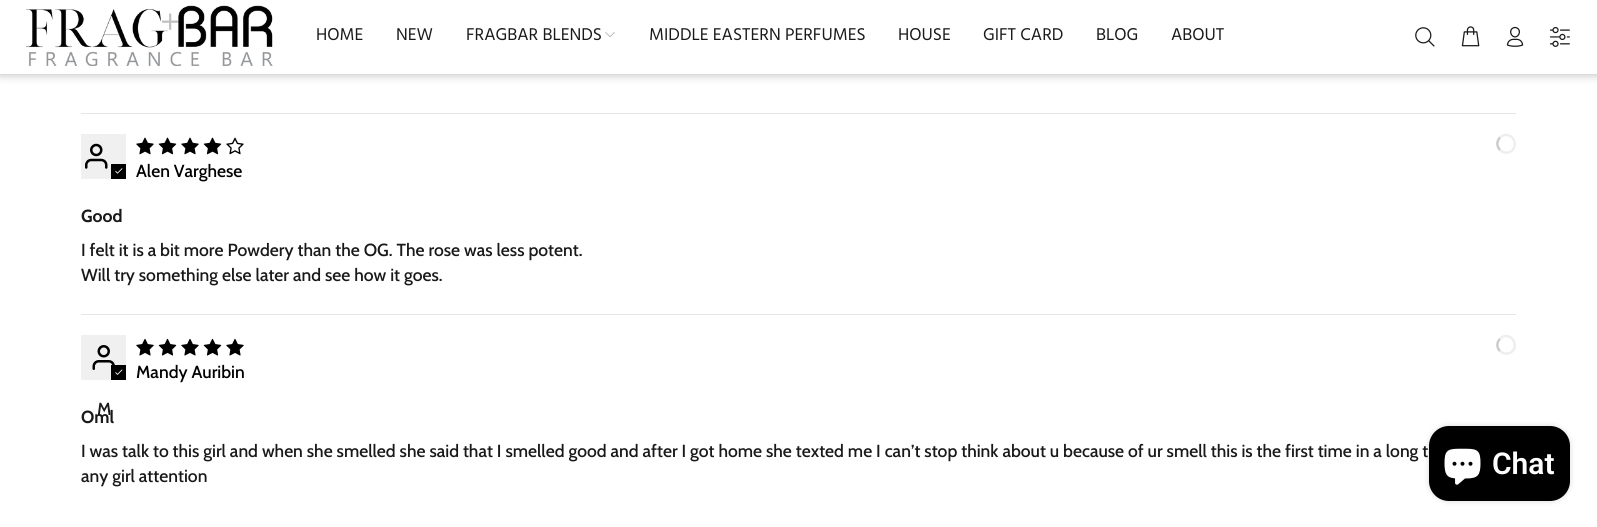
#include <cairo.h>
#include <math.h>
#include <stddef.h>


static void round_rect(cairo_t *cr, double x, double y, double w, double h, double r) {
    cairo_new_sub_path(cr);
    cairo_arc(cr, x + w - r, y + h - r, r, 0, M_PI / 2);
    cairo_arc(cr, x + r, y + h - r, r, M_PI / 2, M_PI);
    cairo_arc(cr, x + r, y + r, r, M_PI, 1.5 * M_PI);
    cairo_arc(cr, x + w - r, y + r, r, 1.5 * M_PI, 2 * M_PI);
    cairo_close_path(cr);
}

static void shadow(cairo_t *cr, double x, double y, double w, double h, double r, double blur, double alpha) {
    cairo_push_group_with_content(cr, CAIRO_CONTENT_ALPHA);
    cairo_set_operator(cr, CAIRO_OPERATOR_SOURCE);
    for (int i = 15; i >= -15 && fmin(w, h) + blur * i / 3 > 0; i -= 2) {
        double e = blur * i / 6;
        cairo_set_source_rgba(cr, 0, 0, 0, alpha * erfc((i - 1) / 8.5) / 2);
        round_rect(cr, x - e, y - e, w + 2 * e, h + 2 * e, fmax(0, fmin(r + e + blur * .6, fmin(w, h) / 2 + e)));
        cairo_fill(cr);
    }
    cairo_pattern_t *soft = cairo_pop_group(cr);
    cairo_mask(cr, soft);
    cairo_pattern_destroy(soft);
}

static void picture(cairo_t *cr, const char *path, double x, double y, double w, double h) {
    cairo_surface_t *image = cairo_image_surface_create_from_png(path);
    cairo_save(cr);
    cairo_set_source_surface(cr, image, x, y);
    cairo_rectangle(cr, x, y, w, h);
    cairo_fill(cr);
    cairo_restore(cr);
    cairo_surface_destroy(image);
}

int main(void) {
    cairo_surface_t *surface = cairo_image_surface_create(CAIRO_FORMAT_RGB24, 1597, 527);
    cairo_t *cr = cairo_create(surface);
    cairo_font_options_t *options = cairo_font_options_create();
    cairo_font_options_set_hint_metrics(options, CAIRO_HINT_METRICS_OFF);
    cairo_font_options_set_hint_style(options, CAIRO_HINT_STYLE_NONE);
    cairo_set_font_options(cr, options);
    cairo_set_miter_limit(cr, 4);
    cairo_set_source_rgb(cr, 1, 1, 1);
    cairo_paint(cr);
    cairo_set_source_rgb(cr, 0, 0, 0);
    shadow(cr, 0, 0, 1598, 74, 0, 5, 0.3);
    cairo_set_source_rgb(cr, 1, 1, 1);
    cairo_rectangle(cr, 0, 0, 1597, 74);
    cairo_fill(cr);
    picture(cr, "img1.png", 26, 5, 247, 61);
    cairo_select_font_face(cr, "Hind", CAIRO_FONT_SLANT_NORMAL, CAIRO_FONT_WEIGHT_NORMAL);
    cairo_set_font_size(cr, 17.5);
    cairo_set_source_rgb(cr, 0.098, 0.098, 0.098);
    cairo_move_to(cr, 316, 40);
    cairo_show_text(cr, "HOME");
    cairo_move_to(cr, 396, 40);
    cairo_show_text(cr, "NEW");
    cairo_move_to(cr, 466, 40);
    cairo_show_text(cr, "FRAGBAR BLENDS");
    picture(cr, "img2.png", 605, 32, 10, 5);
    cairo_move_to(cr, 649, 40);
    cairo_show_text(cr, "MIDDLE EASTERN PERFUMES");
    cairo_move_to(cr, 898, 40);
    cairo_show_text(cr, "HOUSE");
    cairo_move_to(cr, 983, 40);
    cairo_show_text(cr, "GIFT CARD");
    cairo_move_to(cr, 1096, 40);
    cairo_show_text(cr, "BLOG");
    cairo_move_to(cr, 1171, 40);
    cairo_show_text(cr, "ABOUT");
    picture(cr, "img3.png", 1415, 27, 20, 20);
    picture(cr, "img4.png", 1461, 26, 19, 21);
    picture(cr, "img5.png", 1506, 26, 18, 21);
    picture(cr, "img6.png", 1549, 27, 21, 20);
    cairo_set_source_rgb(cr, 0.902, 0.902, 0.902);
    cairo_rectangle(cr, 81, 113, 1435, 1);
    cairo_fill(cr);
    cairo_set_source_rgb(cr, 0.941, 0.941, 0.941);
    cairo_rectangle(cr, 81, 134, 45, 45);
    cairo_fill(cr);
    picture(cr, "img7.png", 85, 143, 23, 26);
    cairo_set_source_rgb(cr, 0, 0, 0);
    cairo_rectangle(cr, 111, 164, 15, 15);
    cairo_fill(cr);
    picture(cr, "img8.png", 115, 168, 8, 6);
    picture(cr, "img9.png", 136, 137, 18, 18);
    picture(cr, "img10.png", 158, 137, 19, 18);
    picture(cr, "img9.png", 181, 137, 18, 18);
    picture(cr, "img10.png", 203, 137, 19, 18);
    picture(cr, "img11.png", 226, 137, 18, 18);
    cairo_new_path(cr);
    cairo_move_to(cr, 1500, 137.5);
    cairo_curve_to(cr, 1501.5, 136, 1504, 135, 1506, 135);
    cairo_curve_to(cr, 1516.5, 135, 1518, 150.5, 1508, 152.5);
    cairo_curve_to(cr, 1505, 153, 1502, 152, 1500, 150);
    cairo_set_source_rgb(cr, 0.933, 0.933, 0.933);
    cairo_set_line_width(cr, 2.5);
    cairo_stroke(cr);
    cairo_new_path(cr);
    cairo_move_to(cr, 1500, 150);
    cairo_curve_to(cr, 1496.5, 146.5, 1496.5, 141, 1500, 137.5);
    cairo_set_source_rgb(cr, 0.8, 0.8, 0.8);
    cairo_stroke(cr);
    cairo_select_font_face(cr, "Cabin Medium", CAIRO_FONT_SLANT_NORMAL, CAIRO_FONT_WEIGHT_NORMAL);
    cairo_set_source_rgb(cr, 0, 0, 0);
    cairo_move_to(cr, 136, 177);
    cairo_show_text(cr, "Alen Varghese");
    cairo_select_font_face(cr, "Cabin", CAIRO_FONT_SLANT_NORMAL, CAIRO_FONT_WEIGHT_BOLD);
    cairo_set_source_rgb(cr, 0.098, 0.098, 0.098);
    cairo_move_to(cr, 81, 222);
    cairo_show_text(cr, "Good");
    cairo_select_font_face(cr, "Cabin Medium", CAIRO_FONT_SLANT_NORMAL, CAIRO_FONT_WEIGHT_NORMAL);
    cairo_move_to(cr, 81, 256);
    cairo_show_text(cr, "I felt it is a bit more Powdery than the OG. The rose was less potent.");
    cairo_move_to(cr, 81, 281);
    cairo_show_text(cr, "Will try something else later and see how it goes.");
    cairo_set_source_rgb(cr, 0.902, 0.902, 0.902);
    cairo_rectangle(cr, 81, 314, 1435, 1);
    cairo_fill(cr);
    picture(cr, "img12.png", 136, 338, 18, 18);
    picture(cr, "img13.png", 158, 338, 19, 18);
    picture(cr, "img12.png", 181, 338, 18, 18);
    picture(cr, "img13.png", 203, 338, 19, 18);
    picture(cr, "img12.png", 226, 338, 18, 18);
    cairo_new_path(cr);
    cairo_move_to(cr, 1500, 339);
    cairo_curve_to(cr, 1501.5, 337, 1504, 336, 1506, 336);
    cairo_curve_to(cr, 1516.5, 336.5, 1518, 351.5, 1508, 353.5);
    cairo_curve_to(cr, 1505, 354, 1502, 353, 1500, 351);
    cairo_set_source_rgb(cr, 0.933, 0.933, 0.933);
    cairo_stroke(cr);
    cairo_new_path(cr);
    cairo_move_to(cr, 1500, 351);
    cairo_curve_to(cr, 1496.5, 348, 1496.5, 342, 1500, 339);
    cairo_set_source_rgb(cr, 0.8, 0.8, 0.8);
    cairo_stroke(cr);
    cairo_set_source_rgb(cr, 0, 0, 0);
    cairo_move_to(cr, 136, 378);
    cairo_show_text(cr, "Mandy Auribin");
    cairo_set_source_rgb(cr, 0.941, 0.941, 0.941);
    cairo_rectangle(cr, 81, 335, 45, 45);
    cairo_fill(cr);
    picture(cr, "img14.png", 92, 345, 23, 25);
    cairo_set_source_rgb(cr, 0, 0, 0);
    cairo_rectangle(cr, 111, 365, 15, 15);
    cairo_fill(cr);
    picture(cr, "img15.png", 115, 369, 8, 6);
    cairo_select_font_face(cr, "Cabin", CAIRO_FONT_SLANT_NORMAL, CAIRO_FONT_WEIGHT_BOLD);
    cairo_set_source_rgb(cr, 0.098, 0.098, 0.098);
    cairo_move_to(cr, 81, 423);
    cairo_show_text(cr, "Oml");
    cairo_select_font_face(cr, "Cabin Medium", CAIRO_FONT_SLANT_NORMAL, CAIRO_FONT_WEIGHT_NORMAL);
    cairo_move_to(cr, 97, 415);
    cairo_show_text(cr, "M");
    cairo_move_to(cr, 81, 457);
    cairo_show_text(cr, "I was talk to this girl and when she smelled she said that I smelled good and after I got home she texted me I can’t stop think about u because of ur smell this is the first time in a long t");
    cairo_move_to(cr, 81, 482);
    cairo_show_text(cr, "any girl attention");
    cairo_set_source_rgb(cr, 0, 0, 0);
    shadow(cr, 1429, 426, 141, 75, 20, 3, 0.15);
    cairo_set_source_rgb(cr, 0, 0, 0);
    round_rect(cr, 1429, 426, 141, 75, 20);
    cairo_fill(cr);
    picture(cr, "img16.png", 1444, 448, 37, 37);
    cairo_select_font_face(cr, "Roboto SemiBold", CAIRO_FONT_SLANT_NORMAL, CAIRO_FONT_WEIGHT_NORMAL);
    cairo_set_font_size(cr, 30);
    cairo_set_source_rgb(cr, 1, 1, 1);
    cairo_move_to(cr, 1492, 474);
    cairo_show_text(cr, "Chat");
    cairo_surface_write_to_png(surface, "page.png");
    cairo_font_options_destroy(options);
    cairo_destroy(cr);
    cairo_surface_destroy(surface);
    return 0;
}
